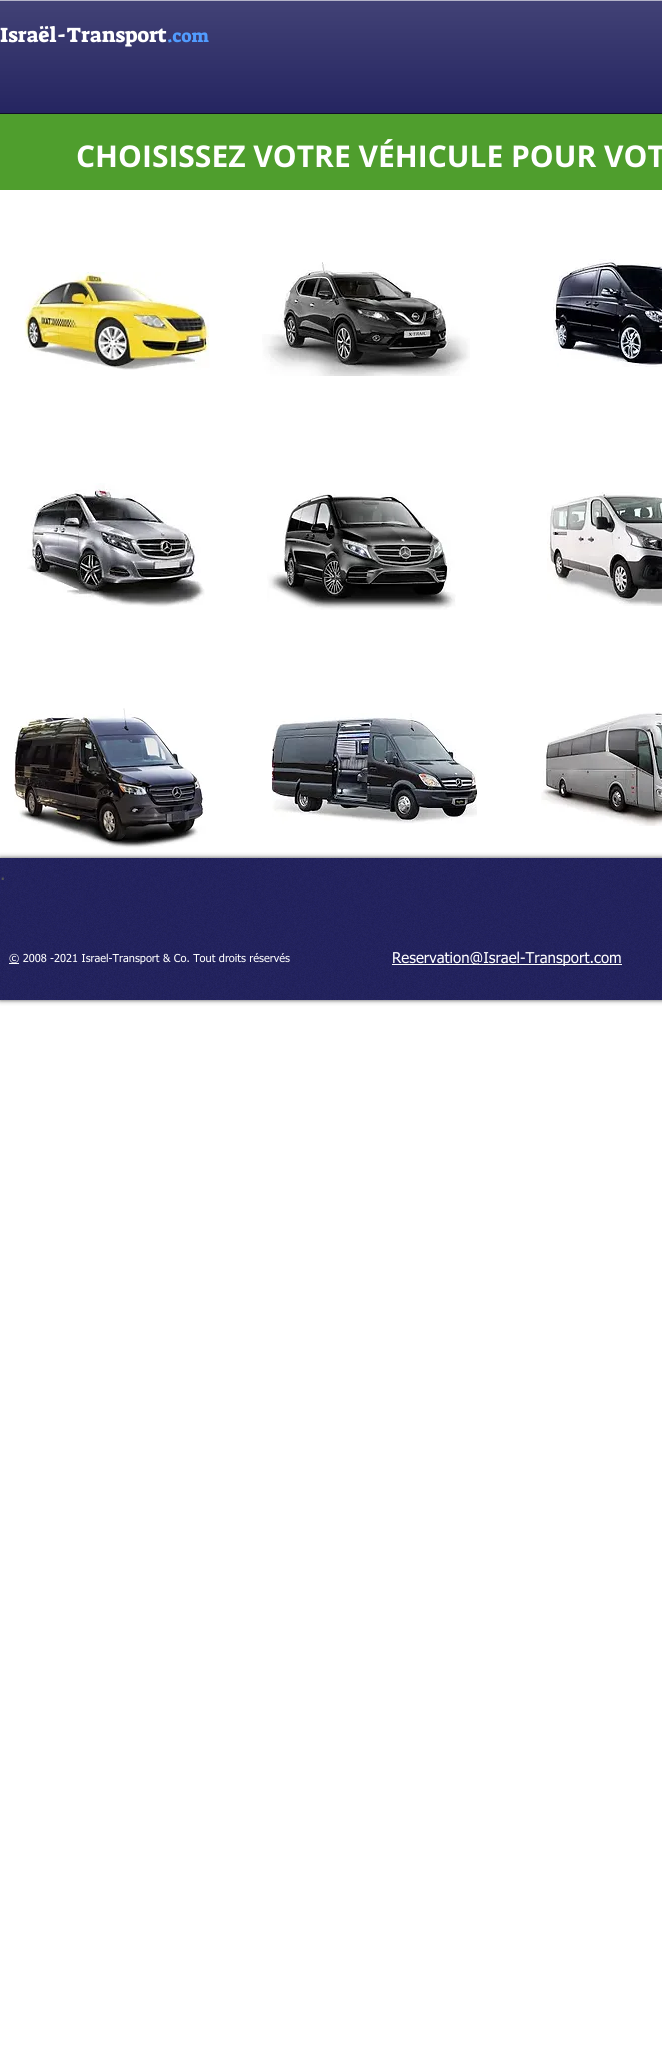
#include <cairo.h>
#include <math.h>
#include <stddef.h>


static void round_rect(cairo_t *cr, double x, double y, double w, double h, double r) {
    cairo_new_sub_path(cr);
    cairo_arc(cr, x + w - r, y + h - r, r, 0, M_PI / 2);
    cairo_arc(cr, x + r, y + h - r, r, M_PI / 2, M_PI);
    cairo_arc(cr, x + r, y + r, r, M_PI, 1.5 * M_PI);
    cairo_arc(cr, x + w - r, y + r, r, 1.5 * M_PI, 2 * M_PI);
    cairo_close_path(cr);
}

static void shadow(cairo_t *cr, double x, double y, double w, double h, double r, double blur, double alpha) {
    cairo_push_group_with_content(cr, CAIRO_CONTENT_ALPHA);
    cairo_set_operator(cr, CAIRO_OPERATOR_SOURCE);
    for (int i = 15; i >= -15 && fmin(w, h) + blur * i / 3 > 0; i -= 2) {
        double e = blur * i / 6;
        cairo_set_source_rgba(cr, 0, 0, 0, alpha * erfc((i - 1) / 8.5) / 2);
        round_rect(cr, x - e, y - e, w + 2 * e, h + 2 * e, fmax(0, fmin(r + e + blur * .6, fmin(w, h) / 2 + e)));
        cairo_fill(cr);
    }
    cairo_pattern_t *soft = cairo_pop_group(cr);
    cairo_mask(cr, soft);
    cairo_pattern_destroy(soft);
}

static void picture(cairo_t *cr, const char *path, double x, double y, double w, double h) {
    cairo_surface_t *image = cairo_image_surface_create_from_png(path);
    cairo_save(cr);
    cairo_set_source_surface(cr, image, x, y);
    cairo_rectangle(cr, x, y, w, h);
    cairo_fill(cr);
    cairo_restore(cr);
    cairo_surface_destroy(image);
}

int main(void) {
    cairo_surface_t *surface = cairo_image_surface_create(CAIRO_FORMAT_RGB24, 662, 2046);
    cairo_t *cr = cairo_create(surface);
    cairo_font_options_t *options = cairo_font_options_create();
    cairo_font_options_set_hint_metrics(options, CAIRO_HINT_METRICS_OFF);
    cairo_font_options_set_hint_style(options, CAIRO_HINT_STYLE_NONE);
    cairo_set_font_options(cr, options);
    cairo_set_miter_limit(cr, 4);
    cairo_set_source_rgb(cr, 1, 1, 1);
    cairo_paint(cr);
    cairo_set_source_rgb(cr, 0, 0, 0.275);
    cairo_rectangle(cr, 0, 1, 662, 112);
    cairo_fill(cr);
    picture(cr, "img1.png", 0, 1, 662, 112);
    cairo_set_source_rgb(cr, 0.059, 0.059, 0.153);
    cairo_rectangle(cr, 0, 113, 662, 1);
    cairo_fill(cr);
    cairo_set_source_rgb(cr, 0.702, 0.702, 0.784);
    cairo_rectangle(cr, 0, 0, 662, 1);
    cairo_fill(cr);
    cairo_select_font_face(cr, "Suez One", CAIRO_FONT_SLANT_NORMAL, CAIRO_FONT_WEIGHT_NORMAL);
    cairo_set_font_size(cr, 21);
    cairo_set_source_rgb(cr, 1, 1, 1);
    cairo_move_to(cr, 0, 42);
    cairo_show_text(cr, "Israël-Transport");
    cairo_set_font_size(cr, 18);
    cairo_set_source_rgb(cr, 0.318, 0.612, 1);
    cairo_move_to(cr, 167, 42);
    cairo_show_text(cr, ".com");
    cairo_set_source_rgb(cr, 0.31, 0.62, 0.176);
    cairo_rectangle(cr, 0, 114, 662, 76);
    cairo_fill(cr);
    cairo_select_font_face(cr, "Open Sans", CAIRO_FONT_SLANT_NORMAL, CAIRO_FONT_WEIGHT_BOLD);
    cairo_set_font_size(cr, 30);
    cairo_set_source_rgb(cr, 1, 1, 1);
    cairo_move_to(cr, 76, 167);
    cairo_show_text(cr, "CHOISISSEZ VOTRE VÉHICULE POUR VOT");
    picture(cr, "img2.png", 24, 272, 186, 98);
    picture(cr, "img3.png", 262, 262, 208, 114);
    picture(cr, "img4.png", 553, 259, 109, 108);
    picture(cr, "img5.png", 27, 483, 178, 124);
    picture(cr, "img6.png", 267, 493, 189, 117);
    picture(cr, "img7.png", 547, 492, 115, 114);
    picture(cr, "img8.png", 14, 708, 192, 140);
    picture(cr, "img9.png", 272, 713, 205, 111);
    picture(cr, "img10.png", 541, 712, 121, 114);
    cairo_set_source_rgb(cr, 0, 0, 0);
    shadow(cr, 0, 858, 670, 142, 0, 2.5, 0.7);
    cairo_set_source_rgb(cr, 0.129, 0.129, 0.369);
    cairo_rectangle(cr, 0, 858, 662, 142);
    cairo_fill(cr);
    picture(cr, "img11.png", 0, 858, 662, 142);
    cairo_select_font_face(cr, "tahoma", CAIRO_FONT_SLANT_NORMAL, CAIRO_FONT_WEIGHT_NORMAL);
    cairo_set_font_size(cr, 18);
    cairo_set_source_rgb(cr, 0.329, 0.337, 0.345);
    cairo_move_to(cr, 0, 880);
    cairo_show_text(cr, ".");
    cairo_set_source_rgb(cr, 1, 1, 1);
    cairo_rectangle(cr, 9, 963, 10, 1);
    cairo_fill(cr);
    cairo_set_font_size(cr, 11);
    cairo_move_to(cr, 9, 962);
    cairo_show_text(cr, "© 2008 -2021 Israel-Transport & Co. Tout droits réservés");
    cairo_rectangle(cr, 392, 964, 230, 1);
    cairo_fill(cr);
    cairo_set_font_size(cr, 15);
    cairo_move_to(cr, 392, 963);
    cairo_show_text(cr, "Reservation@Israel-Transport.com");
    cairo_surface_write_to_png(surface, "page.png");
    cairo_font_options_destroy(options);
    cairo_destroy(cr);
    cairo_surface_destroy(surface);
    return 0;
}
